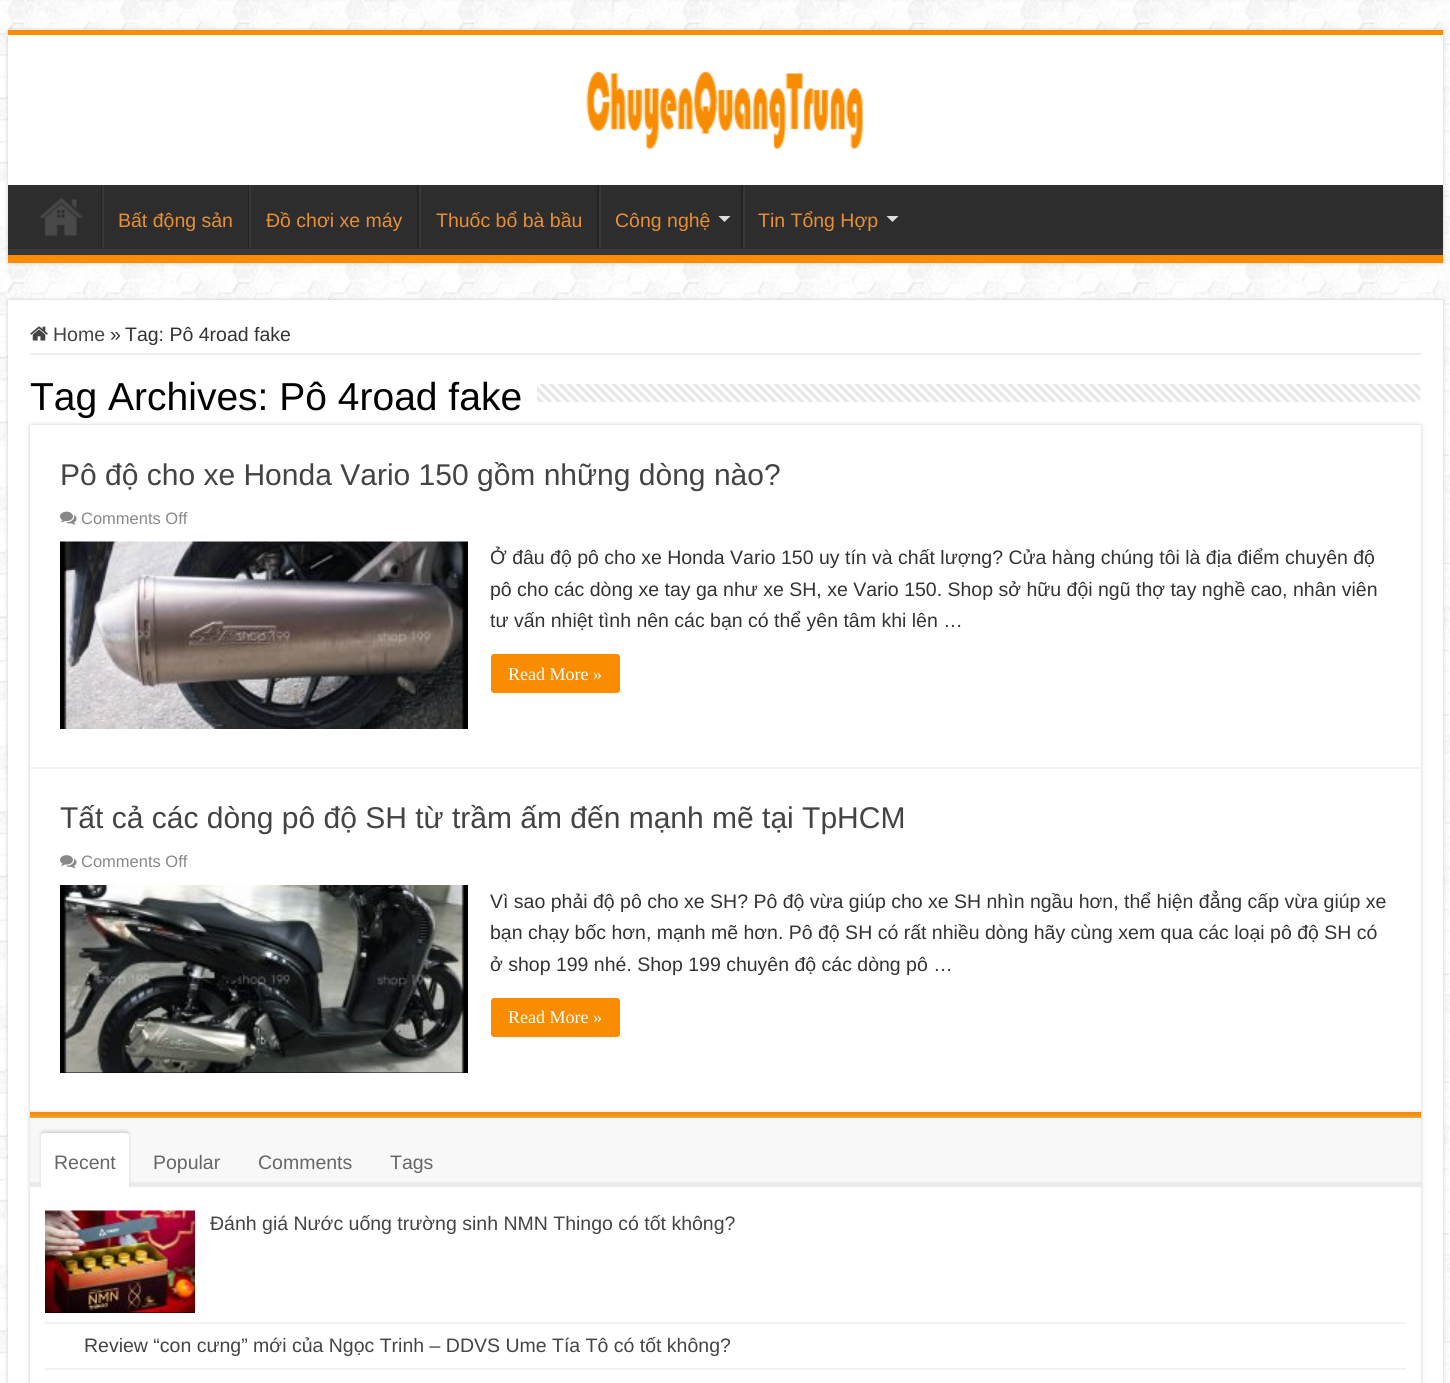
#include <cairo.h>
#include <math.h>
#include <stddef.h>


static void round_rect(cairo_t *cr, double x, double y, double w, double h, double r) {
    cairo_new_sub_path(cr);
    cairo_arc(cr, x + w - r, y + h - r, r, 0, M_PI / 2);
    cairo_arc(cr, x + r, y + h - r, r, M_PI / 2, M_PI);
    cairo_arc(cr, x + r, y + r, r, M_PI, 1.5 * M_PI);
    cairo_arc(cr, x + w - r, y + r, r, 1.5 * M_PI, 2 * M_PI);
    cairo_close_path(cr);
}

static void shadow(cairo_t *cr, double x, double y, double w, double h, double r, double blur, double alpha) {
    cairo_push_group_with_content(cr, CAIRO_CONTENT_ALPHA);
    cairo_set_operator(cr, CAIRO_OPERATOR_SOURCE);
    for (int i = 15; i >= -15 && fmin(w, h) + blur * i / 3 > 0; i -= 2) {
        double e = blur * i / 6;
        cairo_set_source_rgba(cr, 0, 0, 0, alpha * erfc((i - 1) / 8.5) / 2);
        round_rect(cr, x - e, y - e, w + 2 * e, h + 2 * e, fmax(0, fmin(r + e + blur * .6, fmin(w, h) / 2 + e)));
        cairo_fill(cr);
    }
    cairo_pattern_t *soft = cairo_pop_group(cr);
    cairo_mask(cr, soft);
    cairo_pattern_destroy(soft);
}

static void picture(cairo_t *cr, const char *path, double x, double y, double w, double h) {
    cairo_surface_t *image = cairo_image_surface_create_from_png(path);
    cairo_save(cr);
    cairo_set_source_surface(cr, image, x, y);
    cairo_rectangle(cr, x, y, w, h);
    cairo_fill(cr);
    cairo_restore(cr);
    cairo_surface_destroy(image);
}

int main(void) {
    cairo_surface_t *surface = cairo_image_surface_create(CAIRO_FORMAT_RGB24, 1450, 1383);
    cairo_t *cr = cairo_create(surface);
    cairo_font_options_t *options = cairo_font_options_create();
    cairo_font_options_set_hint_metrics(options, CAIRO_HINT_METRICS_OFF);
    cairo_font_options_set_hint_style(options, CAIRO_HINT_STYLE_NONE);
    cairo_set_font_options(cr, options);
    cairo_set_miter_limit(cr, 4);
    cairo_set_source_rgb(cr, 1, 1, 1);
    cairo_paint(cr);
    picture(cr, "img1.png", 0, 0, 1450, 1383);
    cairo_set_source_rgb(cr, 0.792, 0.792, 0.792);
    shadow(cr, 8, 30, 1435, 233, 0, 2, 1);
    cairo_set_source_rgb(cr, 1, 1, 1);
    cairo_rectangle(cr, 8, 35, 1435, 150);
    cairo_fill(cr);
    cairo_set_source_rgb(cr, 0.973, 0.549, 0);
    cairo_rectangle(cr, 8, 30, 1435, 5);
    cairo_fill(cr);
    picture(cr, "img2.png", 586, 71, 277, 78);
    cairo_set_source_rgb(cr, 0.176, 0.176, 0.176);
    cairo_rectangle(cr, 8, 185, 1435, 64);
    cairo_fill(cr);
    cairo_save(cr);
    cairo_rectangle(cr, 8, 185, 1435, 70);
    cairo_clip(cr);
    cairo_set_source_rgb(cr, 0.224, 0.224, 0.224);
    cairo_set_fill_rule(cr, CAIRO_FILL_RULE_EVEN_ODD);
    cairo_new_path(cr);
    cairo_move_to(cr, -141, 36);
    cairo_line_to(cr, 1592, 36);
    cairo_line_to(cr, 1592, 404);
    cairo_line_to(cr, -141, 404);
    cairo_close_path(cr);
    cairo_move_to(cr, 6, 176);
    cairo_line_to(cr, 1442, 176);
    cairo_curve_to(cr, 1442, 176, 1443, 176, 1443, 177);
    cairo_line_to(cr, 1443, 248);
    cairo_curve_to(cr, 1443, 248, 1442, 249, 1442, 249);
    cairo_line_to(cr, 6, 249);
    cairo_curve_to(cr, 5, 249, 4, 248, 4, 248);
    cairo_line_to(cr, 4, 177);
    cairo_curve_to(cr, 4, 176, 5, 176, 6, 176);
    cairo_close_path(cr);
    cairo_fill(cr);
    cairo_restore(cr);
    cairo_set_source_rgb(cr, 0.973, 0.549, 0);
    cairo_rectangle(cr, 8, 255, 1435, 8);
    cairo_fill(cr);
    picture(cr, "img3.png", 39, 198, 44, 38);
    cairo_set_source_rgb(cr, 0.133, 0.133, 0.133);
    cairo_rectangle(cr, 101, 185, 1, 63);
    cairo_fill(cr);
    cairo_set_source_rgb(cr, 0.22, 0.22, 0.22);
    cairo_rectangle(cr, 102, 185, 2, 63);
    cairo_fill(cr);
    cairo_select_font_face(cr, "Liberation Sans", CAIRO_FONT_SLANT_NORMAL, CAIRO_FONT_WEIGHT_NORMAL);
    cairo_set_font_size(cr, 19.5);
    cairo_set_source_rgb(cr, 0.91, 0.561, 0.212);
    cairo_move_to(cr, 118, 227);
    cairo_show_text(cr, "Bất động sản");
    cairo_set_source_rgb(cr, 0.133, 0.133, 0.133);
    cairo_rectangle(cr, 248, 185, 1, 63);
    cairo_fill(cr);
    cairo_set_source_rgb(cr, 0.22, 0.22, 0.22);
    cairo_rectangle(cr, 249, 185, 2, 63);
    cairo_fill(cr);
    cairo_set_source_rgb(cr, 0.91, 0.561, 0.212);
    cairo_move_to(cr, 266, 227);
    cairo_show_text(cr, "Đồ chơi xe máy");
    cairo_set_source_rgb(cr, 0.133, 0.133, 0.133);
    cairo_rectangle(cr, 417, 185, 2, 63);
    cairo_fill(cr);
    cairo_set_source_rgb(cr, 0.22, 0.22, 0.22);
    cairo_rectangle(cr, 419, 185, 2, 63);
    cairo_fill(cr);
    cairo_set_source_rgb(cr, 0.91, 0.561, 0.212);
    cairo_move_to(cr, 436, 227);
    cairo_show_text(cr, "Thuốc bổ bà bầu");
    cairo_set_source_rgb(cr, 0.133, 0.133, 0.133);
    cairo_rectangle(cr, 597, 185, 2, 63);
    cairo_fill(cr);
    cairo_set_source_rgb(cr, 0.22, 0.22, 0.22);
    cairo_rectangle(cr, 599, 185, 2, 63);
    cairo_fill(cr);
    cairo_set_source_rgb(cr, 0.91, 0.561, 0.212);
    cairo_move_to(cr, 615, 227);
    cairo_show_text(cr, "Công nghệ");
    cairo_set_source_rgb(cr, 0.867, 0.867, 0.867);
    cairo_new_path(cr);
    cairo_move_to(cr, 718.5, 216);
    cairo_line_to(cr, 730.5, 216);
    cairo_line_to(cr, 724.5, 222);
    cairo_close_path(cr);
    cairo_fill(cr);
    cairo_set_source_rgb(cr, 0.133, 0.133, 0.133);
    cairo_rectangle(cr, 741, 185, 2, 63);
    cairo_fill(cr);
    cairo_set_source_rgb(cr, 0.22, 0.22, 0.22);
    cairo_rectangle(cr, 743, 185, 2, 63);
    cairo_fill(cr);
    cairo_set_source_rgb(cr, 0.91, 0.561, 0.212);
    cairo_move_to(cr, 758, 227);
    cairo_show_text(cr, "Tin Tổng Hợp");
    cairo_set_source_rgb(cr, 0.867, 0.867, 0.867);
    cairo_new_path(cr);
    cairo_move_to(cr, 886.5, 216);
    cairo_line_to(cr, 898.5, 216);
    cairo_line_to(cr, 892.5, 222);
    cairo_close_path(cr);
    cairo_fill(cr);
    cairo_set_source_rgb(cr, 0.792, 0.792, 0.792);
    shadow(cr, 8, 300, 1435, 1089, 0, 2, 1);
    cairo_set_source_rgb(cr, 1, 1, 1);
    cairo_rectangle(cr, 8, 300, 1435, 1083);
    cairo_fill(cr);
    cairo_set_source_rgb(cr, 0.933, 0.933, 0.933);
    cairo_rectangle(cr, 30, 353, 1391, 2);
    cairo_fill(cr);
    picture(cr, "img4.png", 30, 326, 18, 15);
    cairo_set_source_rgb(cr, 0.267, 0.267, 0.267);
    cairo_move_to(cr, 53, 341);
    cairo_show_text(cr, "Home");
    cairo_set_source_rgb(cr, 0.2, 0.2, 0.2);
    cairo_move_to(cr, 110, 341);
    cairo_show_text(cr, "»");
    cairo_move_to(cr, 125, 341);
    cairo_show_text(cr, "Tag: Pô 4road fake");
    cairo_set_source_rgb(cr, 0.792, 0.792, 0.792);
    shadow(cr, 30, 425, 1391, 693, 0, 2, 1);
    cairo_set_font_size(cr, 39);
    cairo_set_source_rgb(cr, 0, 0, 0);
    cairo_move_to(cr, 30, 410);
    cairo_show_text(cr, "Tag Archives: Pô 4road fake");
    picture(cr, "img5.png", 537, 384, 884, 18);
    cairo_set_source_rgb(cr, 1, 1, 1);
    cairo_rectangle(cr, 30, 425, 1391, 685);
    cairo_fill(cr);
    cairo_set_source_rgb(cr, 0.973, 0.549, 0);
    cairo_rectangle(cr, 30, 1112, 1391, 6);
    cairo_fill(cr);
    cairo_set_source_rgb(cr, 0.949, 0.949, 0.949);
    cairo_rectangle(cr, 30, 767, 1391, 2);
    cairo_fill(cr);
    cairo_set_font_size(cr, 30);
    cairo_set_source_rgb(cr, 0.267, 0.267, 0.267);
    cairo_move_to(cr, 60, 485);
    cairo_show_text(cr, "Pô độ cho xe Honda Vario 150 gồm những dòng nào?");
    picture(cr, "img6.png", 60, 511, 17, 14);
    cairo_set_font_size(cr, 16.5);
    cairo_set_source_rgb(cr, 0.533, 0.533, 0.533);
    cairo_move_to(cr, 81, 524);
    cairo_show_text(cr, "Comments Off");
    picture(cr, "img7.png", 60, 541, 408, 188);
    cairo_set_font_size(cr, 19.5);
    cairo_set_source_rgb(cr, 0.2, 0.2, 0.2);
    cairo_move_to(cr, 490, 564);
    cairo_show_text(cr, "Ở đâu độ pô cho xe Honda Vario 150 uy tín và chất lượng? Cửa hàng chúng tôi là địa điểm chuyên độ");
    cairo_move_to(cr, 490, 596);
    cairo_show_text(cr, "pô cho các dòng xe tay ga như xe SH, xe Vario 150. Shop sở hữu đội ngũ thợ tay nghề cao, nhân viên");
    cairo_move_to(cr, 490, 627);
    cairo_show_text(cr, "tư vấn nhiệt tình nên các bạn có thể yên tâm khi lên …");
    cairo_set_source_rgb(cr, 0.973, 0.549, 0);
    round_rect(cr, 491, 654, 129, 39, 3);
    cairo_fill(cr);
    cairo_select_font_face(cr, "Liberation Serif", CAIRO_FONT_SLANT_NORMAL, CAIRO_FONT_WEIGHT_NORMAL);
    cairo_set_font_size(cr, 18);
    cairo_set_source_rgb(cr, 1, 1, 1);
    cairo_move_to(cr, 508, 680);
    cairo_show_text(cr, "Read More »");
    cairo_set_source_rgb(cr, 0.949, 0.949, 0.949);
    cairo_rectangle(cr, 30, 1110, 1391, 2);
    cairo_fill(cr);
    cairo_select_font_face(cr, "Liberation Sans", CAIRO_FONT_SLANT_NORMAL, CAIRO_FONT_WEIGHT_NORMAL);
    cairo_set_font_size(cr, 30);
    cairo_set_source_rgb(cr, 0.267, 0.267, 0.267);
    cairo_move_to(cr, 60, 828);
    cairo_show_text(cr, "Tất cả các dòng pô độ SH từ trầm ấm đến mạnh mẽ tại TpHCM");
    picture(cr, "img8.png", 60, 855, 17, 14);
    cairo_set_font_size(cr, 16.5);
    cairo_set_source_rgb(cr, 0.533, 0.533, 0.533);
    cairo_move_to(cr, 81, 867);
    cairo_show_text(cr, "Comments Off");
    cairo_set_source_rgb(cr, 0, 0, 0);
    cairo_rectangle(cr, 60, 1072, 408, 1);
    cairo_fill(cr);
    picture(cr, "img9.png", 60, 885, 408, 188);
    cairo_set_font_size(cr, 19.5);
    cairo_set_source_rgb(cr, 0.2, 0.2, 0.2);
    cairo_move_to(cr, 490, 908);
    cairo_show_text(cr, "Vì sao phải độ pô cho xe SH? Pô độ vừa giúp cho xe SH nhìn ngầu hơn, thể hiện đẳng cấp vừa giúp xe");
    cairo_move_to(cr, 490, 939);
    cairo_show_text(cr, "bạn chạy bốc hơn, mạnh mẽ hơn. Pô độ SH có rất nhiều dòng hãy cùng xem qua các loại pô độ SH có");
    cairo_move_to(cr, 490, 971);
    cairo_show_text(cr, "ở shop 199 nhé. Shop 199 chuyên độ các dòng pô …");
    cairo_set_source_rgb(cr, 0.973, 0.549, 0);
    round_rect(cr, 491, 998, 129, 39, 3);
    cairo_fill(cr);
    cairo_select_font_face(cr, "Liberation Serif", CAIRO_FONT_SLANT_NORMAL, CAIRO_FONT_WEIGHT_NORMAL);
    cairo_set_font_size(cr, 18);
    cairo_set_source_rgb(cr, 1, 1, 1);
    cairo_move_to(cr, 508, 1023);
    cairo_show_text(cr, "Read More »");
    cairo_set_source_rgb(cr, 0.792, 0.792, 0.792);
    shadow(cr, 30, 1118, 1391, 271, 0, 2, 1);
    cairo_set_source_rgb(cr, 1, 1, 1);
    cairo_rectangle(cr, 30, 1187, 1391, 196);
    cairo_fill(cr);
    cairo_set_source_rgb(cr, 0.969, 0.969, 0.969);
    cairo_rectangle(cr, 30, 1118, 1391, 64);
    cairo_fill(cr);
    cairo_set_source_rgb(cr, 0.918, 0.918, 0.918);
    cairo_rectangle(cr, 30, 1182, 1391, 5);
    cairo_fill(cr);
    cairo_set_source_rgb(cr, 0.831, 0.831, 0.831);
    shadow(cr, 41, 1131, 88, 54, 3, 1.5, 1);
    cairo_set_source_rgb(cr, 1, 1, 1);
    cairo_new_path(cr);
    cairo_move_to(cr, 44, 1133);
    cairo_line_to(cr, 126, 1133);
    cairo_curve_to(cr, 127.5, 1133, 129, 1134.5, 129, 1136);
    cairo_line_to(cr, 129, 1187);
    cairo_line_to(cr, 41, 1187);
    cairo_line_to(cr, 41, 1136);
    cairo_curve_to(cr, 41, 1134.5, 42.5, 1133, 44, 1133);
    cairo_close_path(cr);
    cairo_fill(cr);
    cairo_select_font_face(cr, "Liberation Sans", CAIRO_FONT_SLANT_NORMAL, CAIRO_FONT_WEIGHT_NORMAL);
    cairo_set_font_size(cr, 19.5);
    cairo_set_source_rgb(cr, 0.4, 0.4, 0.4);
    cairo_move_to(cr, 54, 1169);
    cairo_show_text(cr, "Recent");
    cairo_move_to(cr, 153, 1169);
    cairo_show_text(cr, "Popular");
    cairo_move_to(cr, 258, 1169);
    cairo_show_text(cr, "Comments");
    cairo_move_to(cr, 390, 1169);
    cairo_show_text(cr, "Tags");
    cairo_set_source_rgb(cr, 0.949, 0.949, 0.949);
    cairo_rectangle(cr, 45, 1322, 1361, 2);
    cairo_fill(cr);
    cairo_set_source_rgb(cr, 0, 0, 0);
    cairo_rectangle(cr, 45, 1312, 150, 1);
    cairo_fill(cr);
    picture(cr, "img10.png", 45, 1210, 150, 103);
    cairo_set_source_rgb(cr, 0.267, 0.267, 0.267);
    cairo_move_to(cr, 210, 1230);
    cairo_show_text(cr, "Đánh giá Nước uống trường sinh NMN Thingo có tốt không?");
    cairo_set_source_rgb(cr, 0.949, 0.949, 0.949);
    cairo_rectangle(cr, 45, 1368, 1361, 2);
    cairo_fill(cr);
    cairo_set_source_rgb(cr, 0.267, 0.267, 0.267);
    cairo_move_to(cr, 84, 1352);
    cairo_show_text(cr, "Review “con cưng” mới của Ngọc Trinh – DDVS Ume Tía Tô có tốt không?");
    cairo_surface_write_to_png(surface, "page.png");
    cairo_font_options_destroy(options);
    cairo_destroy(cr);
    cairo_surface_destroy(surface);
    return 0;
}
